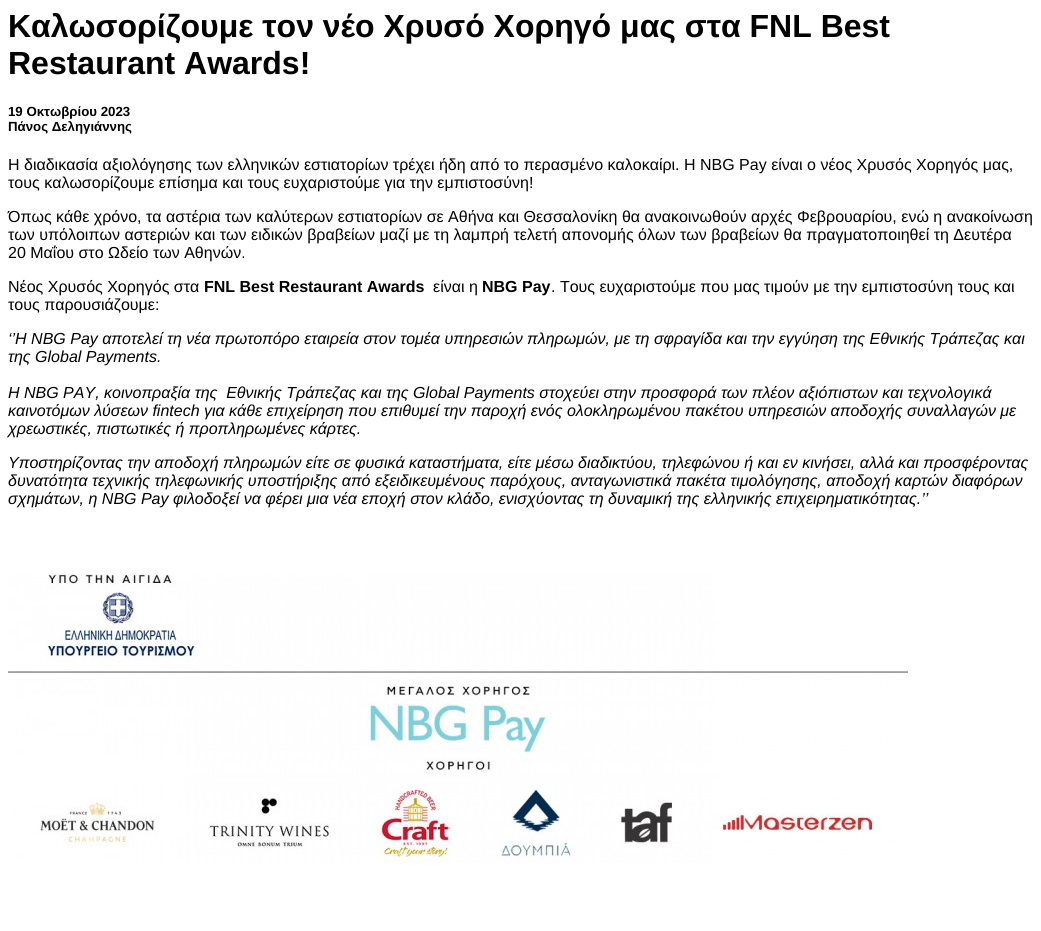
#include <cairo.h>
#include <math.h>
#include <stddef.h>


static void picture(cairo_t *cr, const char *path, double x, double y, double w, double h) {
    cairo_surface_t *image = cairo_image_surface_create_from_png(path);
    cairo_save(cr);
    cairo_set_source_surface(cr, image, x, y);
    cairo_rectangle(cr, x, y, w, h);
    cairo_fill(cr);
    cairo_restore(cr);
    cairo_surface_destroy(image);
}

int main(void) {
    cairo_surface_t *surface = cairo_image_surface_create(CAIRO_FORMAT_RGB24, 1041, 931);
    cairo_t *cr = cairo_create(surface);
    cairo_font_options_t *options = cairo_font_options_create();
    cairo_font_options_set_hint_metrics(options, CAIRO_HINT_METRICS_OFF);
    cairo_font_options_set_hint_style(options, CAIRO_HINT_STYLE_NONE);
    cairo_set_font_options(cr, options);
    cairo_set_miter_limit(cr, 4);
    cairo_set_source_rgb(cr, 1, 1, 1);
    cairo_paint(cr);
    cairo_select_font_face(cr, "Liberation Sans", CAIRO_FONT_SLANT_NORMAL, CAIRO_FONT_WEIGHT_BOLD);
    cairo_set_font_size(cr, 32);
    cairo_set_source_rgb(cr, 0, 0, 0);
    cairo_move_to(cr, 8, 37);
    cairo_show_text(cr, "Καλωσορίζουμε τον νέο Χρυσό Χορηγό μας στα FNL Best");
    cairo_move_to(cr, 8, 74);
    cairo_show_text(cr, "Restaurant Awards!");
    cairo_set_font_size(cr, 13.25);
    cairo_move_to(cr, 8, 116);
    cairo_show_text(cr, "19 Οκτωβρίου 2023");
    cairo_move_to(cr, 8, 131);
    cairo_show_text(cr, "Πάνος Δεληγιάννης");
    cairo_select_font_face(cr, "Liberation Sans", CAIRO_FONT_SLANT_NORMAL, CAIRO_FONT_WEIGHT_NORMAL);
    cairo_set_font_size(cr, 16);
    cairo_move_to(cr, 8, 170);
    cairo_show_text(cr, "Η διαδικασία αξιολόγησης των ελληνικών εστιατορίων τρέχει ήδη από το περασμένο καλοκαίρι. Η NBG Pay είναι ο νέος Χρυσός Χορηγός μας,");
    cairo_move_to(cr, 8, 188);
    cairo_show_text(cr, "τους καλωσορίζουμε επίσημα και τους ευχαριστούμε για την εμπιστοσύνη!");
    cairo_move_to(cr, 8, 222);
    cairo_show_text(cr, "Όπως κάθε χρόνο, τα αστέρια των καλύτερων εστιατορίων σε Αθήνα και Θεσσαλονίκη θα ανακοινωθούν αρχές Φεβρουαρίου, ενώ η ανακοίνωση");
    cairo_move_to(cr, 8, 240);
    cairo_show_text(cr, "των υπόλοιπων αστεριών και των ειδικών βραβείων μαζί με τη λαμπρή τελετή απονομής όλων των βραβείων θα πραγματοποιηθεί τη Δευτέρα");
    cairo_move_to(cr, 8, 258);
    cairo_show_text(cr, "20 Μαΐου στο Ωδείο των Αθηνών.");
    cairo_move_to(cr, 8, 292);
    cairo_show_text(cr, "Νέος Χρυσός Χορηγός στα");
    cairo_select_font_face(cr, "Liberation Sans", CAIRO_FONT_SLANT_NORMAL, CAIRO_FONT_WEIGHT_BOLD);
    cairo_move_to(cr, 204, 292);
    cairo_show_text(cr, "FNL Best Restaurant Awards");
    cairo_select_font_face(cr, "Liberation Sans", CAIRO_FONT_SLANT_NORMAL, CAIRO_FONT_WEIGHT_NORMAL);
    cairo_move_to(cr, 433, 292);
    cairo_show_text(cr, "είναι η");
    cairo_select_font_face(cr, "Liberation Sans", CAIRO_FONT_SLANT_NORMAL, CAIRO_FONT_WEIGHT_BOLD);
    cairo_move_to(cr, 482, 292);
    cairo_show_text(cr, "NBG Pay");
    cairo_select_font_face(cr, "Liberation Sans", CAIRO_FONT_SLANT_NORMAL, CAIRO_FONT_WEIGHT_NORMAL);
    cairo_move_to(cr, 551, 292);
    cairo_show_text(cr, ". Τους ευχαριστούμε που μας τιμούν με την εμπιστοσύνη τους και");
    cairo_move_to(cr, 8, 310);
    cairo_show_text(cr, "τους παρουσιάζουμε:");
    cairo_select_font_face(cr, "Liberation Sans", CAIRO_FONT_SLANT_ITALIC, CAIRO_FONT_WEIGHT_NORMAL);
    cairo_move_to(cr, 8, 344);
    cairo_show_text(cr, "‘’Η NBG Pay αποτελεί τη νέα πρωτοπόρο εταιρεία στον τομέα υπηρεσιών πληρωμών, με τη σφραγίδα και την εγγύηση της Εθνικής Τράπεζας και");
    cairo_move_to(cr, 8, 362);
    cairo_show_text(cr, "της Global Payments.");
    cairo_move_to(cr, 8, 398);
    cairo_show_text(cr, "Η ΝΒG PAY, κοινοπραξία της  Εθνικής Τράπεζας και της Global Payments στοχεύει στην προσφορά των πλέον αξιόπιστων και τεχνολογικά");
    cairo_move_to(cr, 8, 416);
    cairo_show_text(cr, "καινοτόμων λύσεων fintech για κάθε επιχείρηση που επιθυμεί την παροχή ενός ολοκληρωμένου πακέτου υπηρεσιών αποδοχής συναλλαγών με");
    cairo_move_to(cr, 8, 434);
    cairo_show_text(cr, "χρεωστικές, πιστωτικές ή προπληρωμένες κάρτες.");
    cairo_move_to(cr, 8, 468);
    cairo_show_text(cr, "Υποστηρίζοντας την αποδοχή πληρωμών είτε σε φυσικά καταστήματα, είτε μέσω διαδικτύου, τηλεφώνου ή και εν κινήσει, αλλά και προσφέροντας");
    cairo_move_to(cr, 8, 486);
    cairo_show_text(cr, "δυνατότητα τεχνικής τηλεφωνικής υποστήριξης από εξειδικευμένους παρόχους, ανταγωνιστικά πακέτα τιμολόγησης, αποδοχή καρτών διαφόρων");
    cairo_move_to(cr, 8, 504);
    cairo_show_text(cr, "σχημάτων, η NBG Pay φιλοδοξεί να φέρει μια νέα εποχή στον κλάδο, ενισχύοντας τη δυναμική της ελληνικής επιχειρηματικότητας.’’");
    picture(cr, "img1.png", 8, 574, 900, 289);
    cairo_surface_write_to_png(surface, "page.png");
    cairo_font_options_destroy(options);
    cairo_destroy(cr);
    cairo_surface_destroy(surface);
    return 0;
}
